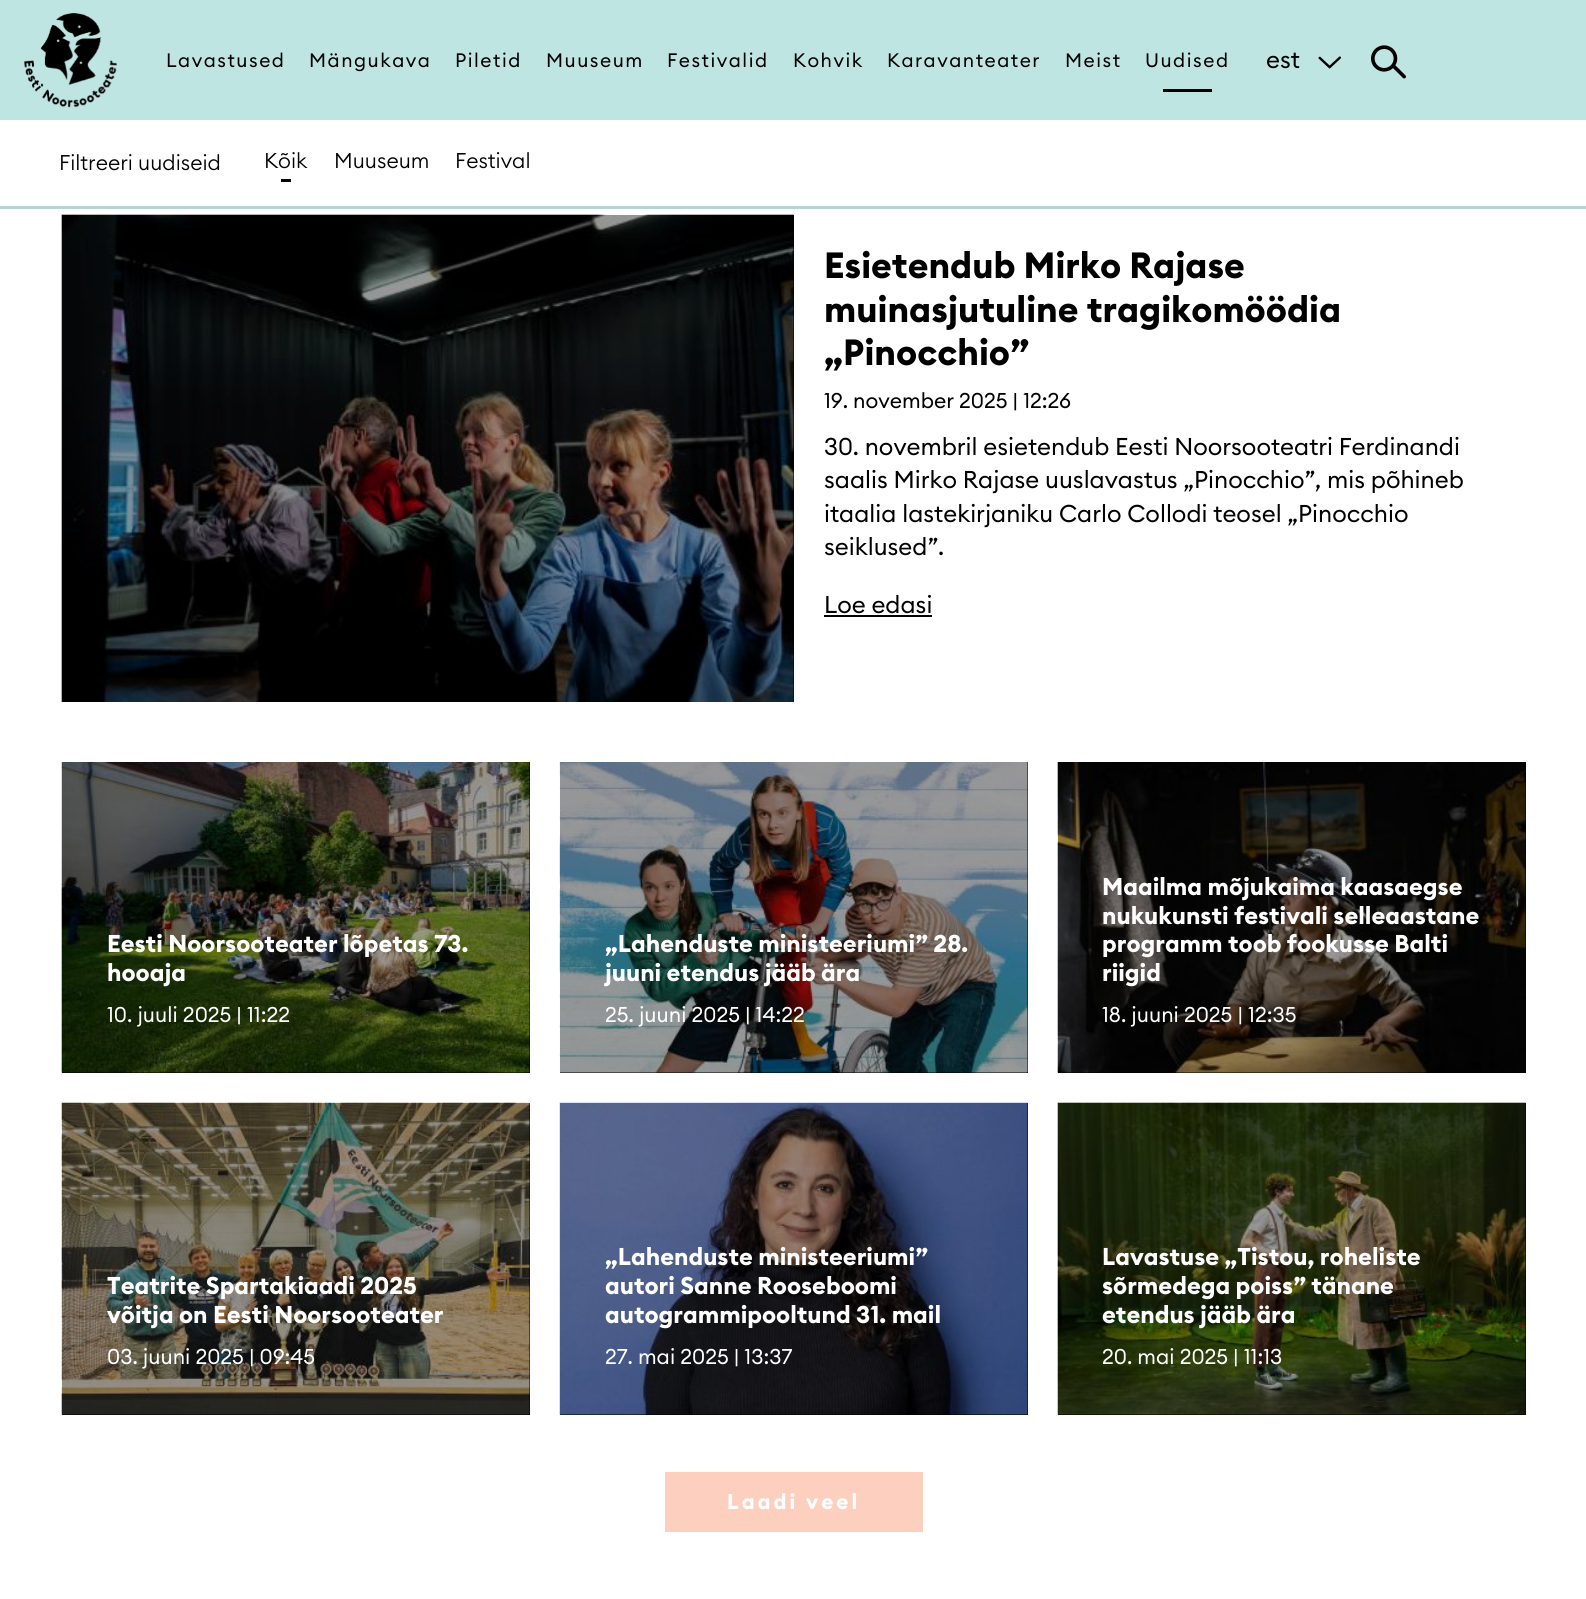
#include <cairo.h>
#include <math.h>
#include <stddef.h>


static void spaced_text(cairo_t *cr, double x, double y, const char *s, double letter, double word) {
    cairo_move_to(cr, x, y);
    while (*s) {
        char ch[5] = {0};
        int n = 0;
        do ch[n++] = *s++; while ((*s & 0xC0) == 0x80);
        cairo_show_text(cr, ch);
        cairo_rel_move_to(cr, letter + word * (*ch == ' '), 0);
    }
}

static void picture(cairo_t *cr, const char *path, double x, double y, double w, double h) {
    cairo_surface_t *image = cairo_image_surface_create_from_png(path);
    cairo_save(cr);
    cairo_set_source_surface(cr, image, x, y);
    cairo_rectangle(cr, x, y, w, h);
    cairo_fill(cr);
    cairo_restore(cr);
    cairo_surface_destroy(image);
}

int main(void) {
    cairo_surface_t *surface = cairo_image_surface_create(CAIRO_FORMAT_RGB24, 1586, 1599);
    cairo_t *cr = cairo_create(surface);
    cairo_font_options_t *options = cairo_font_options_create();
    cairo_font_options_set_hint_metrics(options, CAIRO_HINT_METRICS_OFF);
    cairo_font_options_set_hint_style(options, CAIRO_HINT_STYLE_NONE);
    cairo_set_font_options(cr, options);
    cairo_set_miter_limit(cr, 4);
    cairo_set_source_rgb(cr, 1, 1, 1);
    cairo_paint(cr);
    cairo_set_source_rgb(cr, 0.749, 0.898, 0.89);
    cairo_rectangle(cr, 0, 0, 1586, 120);
    cairo_fill(cr);
    picture(cr, "img1.png", 24, 13, 93, 95);
    cairo_select_font_face(cr, "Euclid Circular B", CAIRO_FONT_SLANT_NORMAL, CAIRO_FONT_WEIGHT_NORMAL);
    cairo_set_font_size(cr, 19.25);
    cairo_set_source_rgb(cr, 0, 0, 0);
    spaced_text(cr, 166, 67, "Lavastused", 1.5, 0);
    spaced_text(cr, 309, 67, "Mängukava", 1.5, 0);
    spaced_text(cr, 455, 67, "Piletid", 1.5, 0);
    spaced_text(cr, 546, 67, "Muuseum", 1.5, 0);
    spaced_text(cr, 667, 67, "Festivalid", 1.5, 0);
    spaced_text(cr, 793, 67, "Kohvik", 1.5, 0);
    spaced_text(cr, 887, 67, "Karavanteater", 1.5, 0);
    spaced_text(cr, 1065, 67, "Meist", 1.5, 0);
    spaced_text(cr, 1145, 67, "Uudised", 1.5, 0);
    cairo_rectangle(cr, 1163, 89, 49, 3);
    cairo_fill(cr);
    cairo_set_font_size(cr, 24);
    cairo_move_to(cr, 1266, 68);
    cairo_show_text(cr, "est");
    picture(cr, "img2.png", 1318, 56, 23, 13);
    picture(cr, "img3.png", 1371, 45, 35, 34);
    cairo_set_source_rgb(cr, 0.714, 0.835, 0.831);
    cairo_rectangle(cr, 0, 206, 1586, 3);
    cairo_fill(cr);
    cairo_select_font_face(cr, "Euclid Circular B Light", CAIRO_FONT_SLANT_NORMAL, CAIRO_FONT_WEIGHT_NORMAL);
    cairo_set_font_size(cr, 21.1);
    cairo_set_source_rgb(cr, 0, 0, 0);
    cairo_move_to(cr, 59, 170);
    cairo_show_text(cr, "Filtreeri uudiseid");
    cairo_move_to(cr, 264, 168);
    cairo_show_text(cr, "Kõik");
    cairo_rectangle(cr, 281, 179, 10, 3);
    cairo_fill(cr);
    cairo_move_to(cr, 334, 168);
    cairo_show_text(cr, "Muuseum");
    cairo_move_to(cr, 455, 168);
    cairo_show_text(cr, "Festival");
    cairo_rectangle(cr, 62, 215, 732, 487);
    cairo_fill(cr);
    picture(cr, "img4.png", 61, 214, 733, 488);
    cairo_select_font_face(cr, "Euclid Circular B", CAIRO_FONT_SLANT_NORMAL, CAIRO_FONT_WEIGHT_BOLD);
    cairo_set_font_size(cr, 36);
    cairo_move_to(cr, 824, 278);
    cairo_show_text(cr, "Esietendub Mirko Rajase");
    cairo_move_to(cr, 824, 322);
    cairo_show_text(cr, "muinasjutuline tragikomöödia");
    cairo_move_to(cr, 824, 365);
    cairo_show_text(cr, "„Pinocchio”");
    cairo_select_font_face(cr, "Euclid Circular B", CAIRO_FONT_SLANT_NORMAL, CAIRO_FONT_WEIGHT_NORMAL);
    cairo_set_font_size(cr, 21.1);
    cairo_move_to(cr, 824, 408);
    cairo_show_text(cr, "19. november 2025 | 12:26");
    cairo_set_font_size(cr, 24);
    cairo_move_to(cr, 824, 455);
    cairo_show_text(cr, "30. novembril esietendub Eesti Noorsooteatri Ferdinandi");
    cairo_move_to(cr, 824, 488);
    cairo_show_text(cr, "saalis Mirko Rajase uuslavastus „Pinocchio”, mis põhineb");
    cairo_move_to(cr, 824, 522);
    cairo_show_text(cr, "itaalia lastekirjaniku Carlo Collodi teosel „Pinocchio");
    cairo_move_to(cr, 824, 555);
    cairo_show_text(cr, "seiklused”.");
    cairo_move_to(cr, 824, 613);
    cairo_show_text(cr, "Loe edasi");
    cairo_rectangle(cr, 824, 615, 108, 2);
    cairo_fill(cr);
    cairo_rectangle(cr, 62, 762, 468, 311);
    cairo_fill(cr);
    picture(cr, "img5.png", 61, 762, 469, 311);
    cairo_select_font_face(cr, "Euclid Circular B", CAIRO_FONT_SLANT_NORMAL, CAIRO_FONT_WEIGHT_BOLD);
    cairo_set_source_rgb(cr, 1, 1, 1);
    cairo_move_to(cr, 107, 952);
    cairo_show_text(cr, "Eesti Noorsooteater lõpetas 73.");
    cairo_move_to(cr, 107, 981);
    cairo_show_text(cr, "hooaja");
    cairo_select_font_face(cr, "Euclid Circular B", CAIRO_FONT_SLANT_NORMAL, CAIRO_FONT_WEIGHT_NORMAL);
    cairo_set_font_size(cr, 21.1);
    cairo_move_to(cr, 107, 1022);
    cairo_show_text(cr, "10. juuli 2025 | 11:22");
    cairo_set_source_rgb(cr, 0, 0, 0);
    cairo_rectangle(cr, 560, 762, 468, 311);
    cairo_fill(cr);
    picture(cr, "img6.png", 559, 762, 469, 311);
    cairo_select_font_face(cr, "Euclid Circular B", CAIRO_FONT_SLANT_NORMAL, CAIRO_FONT_WEIGHT_BOLD);
    cairo_set_font_size(cr, 24);
    cairo_set_source_rgb(cr, 1, 1, 1);
    cairo_move_to(cr, 605, 952);
    cairo_show_text(cr, "„Lahenduste ministeeriumi” 28.");
    cairo_move_to(cr, 605, 981);
    cairo_show_text(cr, "juuni etendus jääb ära");
    cairo_select_font_face(cr, "Euclid Circular B", CAIRO_FONT_SLANT_NORMAL, CAIRO_FONT_WEIGHT_NORMAL);
    cairo_set_font_size(cr, 21.1);
    cairo_move_to(cr, 605, 1022);
    cairo_show_text(cr, "25. juuni 2025 | 14:22");
    cairo_set_source_rgb(cr, 0, 0, 0);
    cairo_rectangle(cr, 1058, 762, 468, 311);
    cairo_fill(cr);
    picture(cr, "img7.png", 1057, 762, 469, 311);
    cairo_select_font_face(cr, "Euclid Circular B", CAIRO_FONT_SLANT_NORMAL, CAIRO_FONT_WEIGHT_BOLD);
    cairo_set_font_size(cr, 24);
    cairo_set_source_rgb(cr, 1, 1, 1);
    cairo_move_to(cr, 1102, 895);
    cairo_show_text(cr, "Maailma mõjukaima kaasaegse");
    cairo_move_to(cr, 1102, 924);
    cairo_show_text(cr, "nukukunsti festivali selleaastane");
    cairo_move_to(cr, 1102, 952);
    cairo_show_text(cr, "programm toob fookusse Balti");
    cairo_move_to(cr, 1102, 981);
    cairo_show_text(cr, "riigid");
    cairo_select_font_face(cr, "Euclid Circular B", CAIRO_FONT_SLANT_NORMAL, CAIRO_FONT_WEIGHT_NORMAL);
    cairo_set_font_size(cr, 21.1);
    cairo_move_to(cr, 1102, 1022);
    cairo_show_text(cr, "18. juuni 2025 | 12:35");
    cairo_set_source_rgb(cr, 0, 0, 0);
    cairo_rectangle(cr, 62, 1103, 468, 312);
    cairo_fill(cr);
    picture(cr, "img8.png", 61, 1102, 469, 313);
    cairo_select_font_face(cr, "Euclid Circular B", CAIRO_FONT_SLANT_NORMAL, CAIRO_FONT_WEIGHT_BOLD);
    cairo_set_font_size(cr, 24);
    cairo_set_source_rgb(cr, 1, 1, 1);
    cairo_move_to(cr, 107, 1294);
    cairo_show_text(cr, "Teatrite Spartakiaadi 2025");
    cairo_move_to(cr, 107, 1323);
    cairo_show_text(cr, "võitja on Eesti Noorsooteater");
    cairo_select_font_face(cr, "Euclid Circular B", CAIRO_FONT_SLANT_NORMAL, CAIRO_FONT_WEIGHT_NORMAL);
    cairo_set_font_size(cr, 21.1);
    cairo_move_to(cr, 107, 1364);
    cairo_show_text(cr, "03. juuni 2025 | 09:45");
    cairo_set_source_rgb(cr, 0, 0, 0);
    cairo_rectangle(cr, 560, 1103, 468, 312);
    cairo_fill(cr);
    picture(cr, "img9.png", 559, 1102, 469, 313);
    cairo_select_font_face(cr, "Euclid Circular B", CAIRO_FONT_SLANT_NORMAL, CAIRO_FONT_WEIGHT_BOLD);
    cairo_set_font_size(cr, 24);
    cairo_set_source_rgb(cr, 1, 1, 1);
    cairo_move_to(cr, 605, 1265);
    cairo_show_text(cr, "„Lahenduste ministeeriumi”");
    cairo_move_to(cr, 605, 1294);
    cairo_show_text(cr, "autori Sanne Rooseboomi");
    cairo_move_to(cr, 605, 1323);
    cairo_show_text(cr, "autogrammipooltund 31. mail");
    cairo_select_font_face(cr, "Euclid Circular B", CAIRO_FONT_SLANT_NORMAL, CAIRO_FONT_WEIGHT_NORMAL);
    cairo_set_font_size(cr, 21.1);
    cairo_move_to(cr, 605, 1364);
    cairo_show_text(cr, "27. mai 2025 | 13:37");
    cairo_set_source_rgb(cr, 0, 0, 0);
    cairo_rectangle(cr, 1058, 1103, 468, 312);
    cairo_fill(cr);
    picture(cr, "img10.png", 1057, 1102, 469, 313);
    cairo_select_font_face(cr, "Euclid Circular B", CAIRO_FONT_SLANT_NORMAL, CAIRO_FONT_WEIGHT_BOLD);
    cairo_set_font_size(cr, 24);
    cairo_set_source_rgb(cr, 1, 1, 1);
    cairo_move_to(cr, 1102, 1265);
    cairo_show_text(cr, "Lavastuse „Tistou, roheliste");
    cairo_move_to(cr, 1102, 1294);
    cairo_show_text(cr, "sõrmedega poiss” tänane");
    cairo_move_to(cr, 1102, 1323);
    cairo_show_text(cr, "etendus jääb ära");
    cairo_select_font_face(cr, "Euclid Circular B", CAIRO_FONT_SLANT_NORMAL, CAIRO_FONT_WEIGHT_NORMAL);
    cairo_set_font_size(cr, 21.1);
    cairo_move_to(cr, 1102, 1364);
    cairo_show_text(cr, "20. mai 2025 | 11:13");
    cairo_set_source_rgb(cr, 0.988, 0.812, 0.749);
    cairo_rectangle(cr, 665, 1472, 258, 60);
    cairo_fill(cr);
    cairo_select_font_face(cr, "Euclid Circular B", CAIRO_FONT_SLANT_NORMAL, CAIRO_FONT_WEIGHT_BOLD);
    cairo_set_source_rgb(cr, 1, 1, 1);
    spaced_text(cr, 727, 1509, "Laadi veel", 3, 0);
    cairo_surface_write_to_png(surface, "page.png");
    cairo_font_options_destroy(options);
    cairo_destroy(cr);
    cairo_surface_destroy(surface);
    return 0;
}
